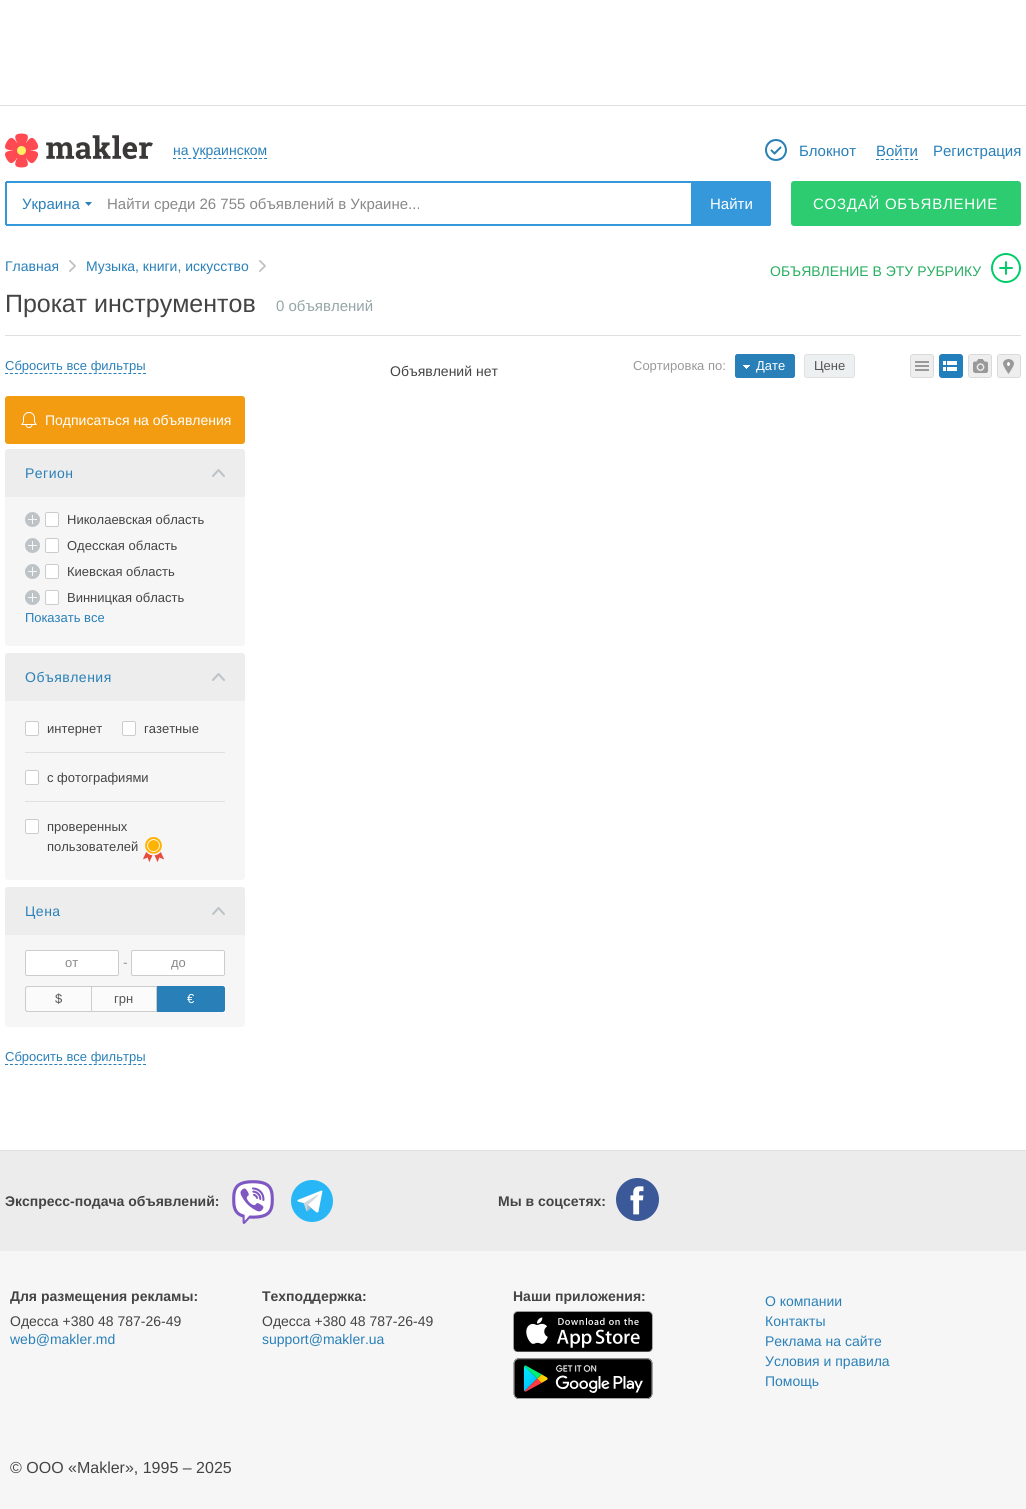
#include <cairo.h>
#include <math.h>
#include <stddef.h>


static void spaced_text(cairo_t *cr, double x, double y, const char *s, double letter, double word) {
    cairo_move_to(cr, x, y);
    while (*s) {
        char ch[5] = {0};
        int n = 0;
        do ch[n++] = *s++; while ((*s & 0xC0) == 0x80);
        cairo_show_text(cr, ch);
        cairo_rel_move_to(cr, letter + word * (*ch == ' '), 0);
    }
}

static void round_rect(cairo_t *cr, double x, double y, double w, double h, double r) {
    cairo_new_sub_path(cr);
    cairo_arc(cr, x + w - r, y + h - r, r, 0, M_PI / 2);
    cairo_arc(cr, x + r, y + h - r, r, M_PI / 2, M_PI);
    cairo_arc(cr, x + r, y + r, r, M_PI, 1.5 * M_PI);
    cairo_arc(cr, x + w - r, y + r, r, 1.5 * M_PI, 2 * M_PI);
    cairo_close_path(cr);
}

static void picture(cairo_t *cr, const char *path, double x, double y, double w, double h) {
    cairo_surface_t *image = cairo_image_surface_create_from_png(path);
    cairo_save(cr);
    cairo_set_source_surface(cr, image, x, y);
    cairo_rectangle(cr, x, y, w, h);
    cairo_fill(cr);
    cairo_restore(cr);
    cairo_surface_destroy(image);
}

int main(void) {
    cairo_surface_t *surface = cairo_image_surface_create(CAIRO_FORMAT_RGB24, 1026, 1509);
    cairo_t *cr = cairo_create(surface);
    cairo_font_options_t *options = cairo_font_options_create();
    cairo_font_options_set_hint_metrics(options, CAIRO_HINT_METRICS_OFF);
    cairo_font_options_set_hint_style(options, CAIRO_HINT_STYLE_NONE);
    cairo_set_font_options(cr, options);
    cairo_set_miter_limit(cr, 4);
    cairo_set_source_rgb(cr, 1, 1, 1);
    cairo_paint(cr);
    cairo_set_source_rgb(cr, 0.878, 0.878, 0.878);
    cairo_rectangle(cr, 0, 105, 1026, 1);
    cairo_fill(cr);
    picture(cr, "img1.png", 5, 133, 148, 35);
    cairo_select_font_face(cr, "Liberation Sans", CAIRO_FONT_SLANT_NORMAL, CAIRO_FONT_WEIGHT_NORMAL);
    cairo_set_font_size(cr, 14);
    cairo_set_source_rgb(cr, 0.161, 0.502, 0.725);
    cairo_move_to(cr, 173, 155);
    cairo_show_text(cr, "на украинском");
    cairo_new_path(cr);
    cairo_move_to(cr, 173, 158.5);
    cairo_line_to(cr, 267, 158.5);
    cairo_set_line_width(cr, 1);
    cairo_set_dash(cr, (double[]){3, 2.06}, 2, 0);
    cairo_stroke(cr);
    picture(cr, "img2.png", 765, 139, 22, 22);
    cairo_set_font_size(cr, 15);
    cairo_move_to(cr, 799, 156);
    cairo_show_text(cr, "Блокнот");
    cairo_move_to(cr, 876, 156);
    cairo_show_text(cr, "Войти");
    cairo_new_path(cr);
    cairo_move_to(cr, 876, 159.5);
    cairo_line_to(cr, 918, 159.5);
    cairo_set_dash(cr, (double[]){3, 1.88}, 2, 0);
    cairo_stroke(cr);
    cairo_move_to(cr, 933, 156);
    cairo_show_text(cr, "Регистрация");
    cairo_set_source_rgb(cr, 0.204, 0.596, 0.859);
    cairo_rectangle(cr, 6, 181, 764, 2);
    cairo_fill(cr);
    cairo_rectangle(cr, 6, 224, 764, 2);
    cairo_fill(cr);
    cairo_rectangle(cr, 5, 182, 2, 43);
    cairo_fill(cr);
    cairo_set_source_rgb(cr, 0.161, 0.502, 0.725);
    cairo_new_path(cr);
    cairo_move_to(cr, 85, 202);
    cairo_line_to(cr, 88.5, 206);
    cairo_line_to(cr, 92, 202);
    cairo_close_path(cr);
    cairo_fill(cr);
    cairo_move_to(cr, 22, 209);
    cairo_show_text(cr, "Украина");
    cairo_save(cr);
    cairo_rectangle(cr, 107, 195, 577, 17);
    cairo_clip(cr);
    cairo_set_source_rgb(cr, 0.533, 0.533, 0.533);
    cairo_move_to(cr, 107, 209);
    cairo_show_text(cr, "Найти среди 26 755 объявлений в Украине...");
    cairo_restore(cr);
    cairo_set_source_rgb(cr, 0.204, 0.596, 0.859);
    cairo_new_path(cr);
    cairo_move_to(cr, 691.5, 181.5);
    cairo_line_to(cr, 769, 181.5);
    cairo_curve_to(cr, 770, 181.5, 770.5, 182, 770.5, 183);
    cairo_line_to(cr, 770.5, 224);
    cairo_curve_to(cr, 770.5, 225, 770, 225.5, 769, 225.5);
    cairo_line_to(cr, 691.5, 225.5);
    cairo_close_path(cr);
    cairo_fill_preserve(cr);
    cairo_set_dash(cr, NULL, 0, 0);
    cairo_stroke(cr);
    cairo_set_source_rgb(cr, 1, 1, 1);
    cairo_move_to(cr, 710, 209);
    cairo_show_text(cr, "Найти");
    cairo_set_source_rgb(cr, 0.18, 0.8, 0.443);
    round_rect(cr, 791, 181, 230, 45, 3);
    cairo_fill(cr);
    cairo_set_source_rgb(cr, 1, 1, 1);
    spaced_text(cr, 813, 209, "СОЗДАЙ ОБЪЯВЛЕНИЕ", 0.75, 0);
    cairo_set_font_size(cr, 14);
    cairo_set_source_rgb(cr, 0.161, 0.502, 0.725);
    cairo_move_to(cr, 5, 271);
    cairo_show_text(cr, "Главная");
    picture(cr, "img3.png", 69, 260, 7, 12);
    cairo_move_to(cr, 86, 271);
    cairo_show_text(cr, "Музыка, книги, искусство");
    picture(cr, "img3.png", 259, 260, 7, 12);
    cairo_set_source_rgb(cr, 0.153, 0.682, 0.376);
    cairo_move_to(cr, 770, 276);
    cairo_show_text(cr, "ОБЪЯВЛЕНИЕ В ЭТУ РУБРИКУ");
    picture(cr, "img4.png", 991, 253, 30, 30);
    cairo_set_font_size(cr, 25);
    cairo_set_source_rgb(cr, 0.267, 0.267, 0.267);
    cairo_move_to(cr, 5, 312);
    cairo_show_text(cr, "Прокат инструментов");
    cairo_set_font_size(cr, 15);
    cairo_set_source_rgb(cr, 0.584, 0.647, 0.651);
    cairo_move_to(cr, 276, 311);
    cairo_show_text(cr, "0 объявлений");
    cairo_set_source_rgb(cr, 0.878, 0.878, 0.878);
    cairo_rectangle(cr, 5, 335, 1016, 1);
    cairo_fill(cr);
    cairo_set_font_size(cr, 13);
    cairo_set_source_rgb(cr, 0.161, 0.502, 0.725);
    cairo_move_to(cr, 5, 370);
    cairo_show_text(cr, "Сбросить все фильтры");
    cairo_new_path(cr);
    cairo_move_to(cr, 5, 373.5);
    cairo_line_to(cr, 146, 373.5);
    cairo_set_dash(cr, (double[]){3, 1.93}, 2, 0);
    cairo_stroke(cr);
    cairo_set_source_rgb(cr, 0.953, 0.612, 0.071);
    round_rect(cr, 5, 396, 240, 48, 3);
    cairo_fill(cr);
    picture(cr, "img5.png", 21, 412, 16, 16);
    cairo_set_font_size(cr, 14);
    cairo_set_source_rgb(cr, 1, 1, 1);
    cairo_move_to(cr, 45, 425);
    cairo_show_text(cr, "Подписаться на объявления");
    cairo_set_source_rgb(cr, 0.961, 0.961, 0.961);
    round_rect(cr, 5, 449, 240, 197, 3);
    cairo_fill(cr);
    cairo_set_source_rgb(cr, 0.929, 0.929, 0.929);
    cairo_new_path(cr);
    cairo_move_to(cr, 8, 449);
    cairo_line_to(cr, 242, 449);
    cairo_curve_to(cr, 243.5, 449, 245, 450.5, 245, 452);
    cairo_line_to(cr, 245, 497);
    cairo_line_to(cr, 5, 497);
    cairo_line_to(cr, 5, 452);
    cairo_curve_to(cr, 5, 450.5, 6.5, 449, 8, 449);
    cairo_close_path(cr);
    cairo_fill(cr);
    cairo_set_source_rgb(cr, 0.161, 0.502, 0.725);
    spaced_text(cr, 25, 478, "Регион", 0.5, 0);
    picture(cr, "img6.png", 212, 469, 13, 8);
    picture(cr, "img7.png", 25, 512, 15, 15);
    cairo_set_source_rgb(cr, 1, 1, 1);
    round_rect(cr, 45.5, 512.5, 13, 14, 1.5);
    cairo_fill_preserve(cr);
    cairo_set_source_rgb(cr, 0.8, 0.8, 0.8);
    cairo_set_dash(cr, NULL, 0, 0);
    cairo_stroke(cr);
    cairo_set_font_size(cr, 13);
    cairo_set_source_rgb(cr, 0.267, 0.267, 0.267);
    cairo_move_to(cr, 67, 524);
    cairo_show_text(cr, "Николаевская область");
    picture(cr, "img7.png", 25, 538, 15, 15);
    cairo_set_source_rgb(cr, 1, 1, 1);
    round_rect(cr, 45.5, 538.5, 13, 14, 1.5);
    cairo_fill_preserve(cr);
    cairo_set_source_rgb(cr, 0.8, 0.8, 0.8);
    cairo_stroke(cr);
    cairo_set_source_rgb(cr, 0.267, 0.267, 0.267);
    cairo_move_to(cr, 67, 550);
    cairo_show_text(cr, "Одесская область");
    picture(cr, "img7.png", 25, 564, 15, 15);
    cairo_set_source_rgb(cr, 1, 1, 1);
    round_rect(cr, 45.5, 564.5, 13, 14, 1.5);
    cairo_fill_preserve(cr);
    cairo_set_source_rgb(cr, 0.8, 0.8, 0.8);
    cairo_stroke(cr);
    cairo_set_source_rgb(cr, 0.267, 0.267, 0.267);
    cairo_move_to(cr, 67, 576);
    cairo_show_text(cr, "Киевская область");
    picture(cr, "img7.png", 25, 590, 15, 15);
    cairo_set_source_rgb(cr, 1, 1, 1);
    round_rect(cr, 45.5, 590.5, 13, 14, 1.5);
    cairo_fill_preserve(cr);
    cairo_set_source_rgb(cr, 0.8, 0.8, 0.8);
    cairo_stroke(cr);
    cairo_set_source_rgb(cr, 0.267, 0.267, 0.267);
    cairo_move_to(cr, 67, 602);
    cairo_show_text(cr, "Винницкая область");
    cairo_set_source_rgb(cr, 0.161, 0.502, 0.725);
    cairo_move_to(cr, 25, 622);
    cairo_show_text(cr, "Показать все");
    cairo_set_source_rgb(cr, 0.961, 0.961, 0.961);
    round_rect(cr, 5, 653, 240, 227, 3);
    cairo_fill(cr);
    cairo_set_source_rgb(cr, 0.929, 0.929, 0.929);
    cairo_new_path(cr);
    cairo_move_to(cr, 8, 653);
    cairo_line_to(cr, 242, 653);
    cairo_curve_to(cr, 243.5, 653, 245, 654.5, 245, 656);
    cairo_line_to(cr, 245, 701);
    cairo_line_to(cr, 5, 701);
    cairo_line_to(cr, 5, 656);
    cairo_curve_to(cr, 5, 654.5, 6.5, 653, 8, 653);
    cairo_close_path(cr);
    cairo_fill(cr);
    cairo_set_font_size(cr, 14);
    cairo_set_source_rgb(cr, 0.161, 0.502, 0.725);
    spaced_text(cr, 25, 682, "Объявления", 0.5, 0);
    picture(cr, "img6.png", 212, 673, 13, 8);
    cairo_set_source_rgb(cr, 1, 1, 1);
    round_rect(cr, 25.5, 721.5, 13, 14, 1.5);
    cairo_fill_preserve(cr);
    cairo_set_source_rgb(cr, 0.8, 0.8, 0.8);
    cairo_stroke(cr);
    cairo_set_font_size(cr, 13);
    cairo_set_source_rgb(cr, 0.267, 0.267, 0.267);
    cairo_move_to(cr, 47, 733);
    cairo_show_text(cr, "интернет");
    cairo_set_source_rgb(cr, 1, 1, 1);
    round_rect(cr, 122.5, 721.5, 13, 14, 1.5);
    cairo_fill_preserve(cr);
    cairo_set_source_rgb(cr, 0.8, 0.8, 0.8);
    cairo_stroke(cr);
    cairo_set_source_rgb(cr, 0.267, 0.267, 0.267);
    cairo_move_to(cr, 144, 733);
    cairo_show_text(cr, "газетные");
    cairo_set_source_rgb(cr, 0.878, 0.878, 0.878);
    cairo_rectangle(cr, 25, 752, 200, 1);
    cairo_fill(cr);
    cairo_set_source_rgb(cr, 1, 1, 1);
    round_rect(cr, 25.5, 770.5, 13, 14, 1.5);
    cairo_fill_preserve(cr);
    cairo_set_source_rgb(cr, 0.8, 0.8, 0.8);
    cairo_stroke(cr);
    cairo_set_source_rgb(cr, 0.267, 0.267, 0.267);
    cairo_move_to(cr, 47, 782);
    cairo_show_text(cr, "с фотографиями");
    cairo_set_source_rgb(cr, 0.878, 0.878, 0.878);
    cairo_rectangle(cr, 25, 801, 200, 1);
    cairo_fill(cr);
    cairo_set_source_rgb(cr, 1, 1, 1);
    round_rect(cr, 25.5, 819.5, 13, 14, 1.5);
    cairo_fill_preserve(cr);
    cairo_set_source_rgb(cr, 0.8, 0.8, 0.8);
    cairo_stroke(cr);
    cairo_set_source_rgb(cr, 0.267, 0.267, 0.267);
    cairo_move_to(cr, 47, 831);
    cairo_show_text(cr, "проверенных");
    cairo_move_to(cr, 47, 851);
    cairo_show_text(cr, "пользователей");
    picture(cr, "img8.png", 143, 837, 21, 25);
    cairo_set_source_rgb(cr, 0.961, 0.961, 0.961);
    round_rect(cr, 5, 887, 240, 140, 3);
    cairo_fill(cr);
    cairo_set_source_rgb(cr, 0.929, 0.929, 0.929);
    cairo_new_path(cr);
    cairo_move_to(cr, 8, 887);
    cairo_line_to(cr, 242, 887);
    cairo_curve_to(cr, 243.5, 887, 245, 888.5, 245, 890);
    cairo_line_to(cr, 245, 935);
    cairo_line_to(cr, 5, 935);
    cairo_line_to(cr, 5, 890);
    cairo_curve_to(cr, 5, 888.5, 6.5, 887, 8, 887);
    cairo_close_path(cr);
    cairo_fill(cr);
    cairo_set_font_size(cr, 14);
    cairo_set_source_rgb(cr, 0.161, 0.502, 0.725);
    spaced_text(cr, 25, 916, "Цена", 0.5, 0);
    picture(cr, "img6.png", 212, 907, 13, 8);
    cairo_set_source_rgb(cr, 1, 1, 1);
    round_rect(cr, 25.5, 950.5, 93, 25, 1.5);
    cairo_fill_preserve(cr);
    cairo_set_source_rgb(cr, 0.8, 0.8, 0.8);
    cairo_stroke(cr);
    cairo_set_font_size(cr, 13);
    cairo_set_source_rgb(cr, 0.533, 0.533, 0.533);
    cairo_move_to(cr, 65, 967);
    cairo_show_text(cr, "от");
    cairo_set_font_size(cr, 14);
    cairo_set_source_rgb(cr, 0.6, 0.6, 0.6);
    cairo_move_to(cr, 123, 967);
    cairo_show_text(cr, "-");
    cairo_set_source_rgb(cr, 1, 1, 1);
    round_rect(cr, 131.5, 950.5, 93, 25, 1.5);
    cairo_fill_preserve(cr);
    cairo_set_source_rgb(cr, 0.8, 0.8, 0.8);
    cairo_stroke(cr);
    cairo_set_font_size(cr, 13);
    cairo_set_source_rgb(cr, 0.533, 0.533, 0.533);
    cairo_move_to(cr, 171, 967);
    cairo_show_text(cr, "до");
    cairo_set_source_rgb(cr, 0.984, 0.984, 0.984);
    cairo_new_path(cr);
    cairo_move_to(cr, 28, 986);
    cairo_line_to(cr, 91, 986);
    cairo_line_to(cr, 91, 1012);
    cairo_line_to(cr, 28, 1012);
    cairo_curve_to(cr, 26.5, 1012, 25, 1010.5, 25, 1009);
    cairo_line_to(cr, 25, 989);
    cairo_curve_to(cr, 25, 987.5, 26.5, 986, 28, 986);
    cairo_close_path(cr);
    cairo_fill(cr);
    cairo_set_source_rgb(cr, 0.8, 0.8, 0.8);
    cairo_set_fill_rule(cr, CAIRO_FILL_RULE_EVEN_ODD);
    cairo_new_path(cr);
    cairo_move_to(cr, 28, 986);
    cairo_line_to(cr, 91, 986);
    cairo_line_to(cr, 91, 1012);
    cairo_line_to(cr, 28, 1012);
    cairo_curve_to(cr, 26, 1012, 25, 1011, 25, 1009);
    cairo_line_to(cr, 25, 989);
    cairo_curve_to(cr, 25, 987, 26, 986, 28, 986);
    cairo_close_path(cr);
    cairo_move_to(cr, 28, 987);
    cairo_line_to(cr, 91, 987);
    cairo_line_to(cr, 91, 1011);
    cairo_line_to(cr, 28, 1011);
    cairo_curve_to(cr, 27, 1011, 26, 1010, 26, 1009);
    cairo_line_to(cr, 26, 989);
    cairo_curve_to(cr, 26, 988, 27, 987, 28, 987);
    cairo_close_path(cr);
    cairo_fill(cr);
    cairo_set_source_rgb(cr, 0.333, 0.333, 0.333);
    cairo_move_to(cr, 55, 1003);
    cairo_show_text(cr, "$");
    cairo_set_source_rgb(cr, 0.984, 0.984, 0.984);
    cairo_rectangle(cr, 91.5, 986.5, 65, 25);
    cairo_fill_preserve(cr);
    cairo_set_source_rgb(cr, 0.8, 0.8, 0.8);
    cairo_stroke(cr);
    cairo_set_source_rgb(cr, 0.333, 0.333, 0.333);
    cairo_move_to(cr, 114, 1003);
    cairo_show_text(cr, "грн");
    cairo_set_source_rgb(cr, 0.161, 0.502, 0.725);
    cairo_new_path(cr);
    cairo_move_to(cr, 157, 986);
    cairo_line_to(cr, 222, 986);
    cairo_curve_to(cr, 223.5, 986, 225, 987.5, 225, 989);
    cairo_line_to(cr, 225, 1009);
    cairo_curve_to(cr, 225, 1010.5, 223.5, 1012, 222, 1012);
    cairo_line_to(cr, 157, 1012);
    cairo_close_path(cr);
    cairo_fill(cr);
    cairo_new_path(cr);
    cairo_move_to(cr, 157, 986);
    cairo_line_to(cr, 222, 986);
    cairo_curve_to(cr, 224, 986, 225, 987, 225, 989);
    cairo_line_to(cr, 225, 1009);
    cairo_curve_to(cr, 225, 1011, 224, 1012, 222, 1012);
    cairo_line_to(cr, 157, 1012);
    cairo_close_path(cr);
    cairo_move_to(cr, 157, 987);
    cairo_line_to(cr, 222, 987);
    cairo_curve_to(cr, 223, 987, 224, 988, 224, 989);
    cairo_line_to(cr, 224, 1009);
    cairo_curve_to(cr, 224, 1010, 223, 1011, 222, 1011);
    cairo_line_to(cr, 157, 1011);
    cairo_close_path(cr);
    cairo_fill(cr);
    cairo_set_source_rgb(cr, 1, 1, 1);
    cairo_move_to(cr, 187, 1003);
    cairo_show_text(cr, "€");
    cairo_set_source_rgb(cr, 0.161, 0.502, 0.725);
    cairo_move_to(cr, 5, 1061);
    cairo_show_text(cr, "Сбросить все фильтры");
    cairo_new_path(cr);
    cairo_move_to(cr, 5, 1064.5);
    cairo_line_to(cr, 146, 1064.5);
    cairo_set_dash(cr, (double[]){3, 1.93}, 2, 0);
    cairo_stroke(cr);
    cairo_set_font_size(cr, 14);
    cairo_set_source_rgb(cr, 0.267, 0.267, 0.267);
    cairo_move_to(cr, 390, 376);
    cairo_show_text(cr, "Объявлений нет");
    cairo_set_font_size(cr, 13);
    cairo_set_source_rgb(cr, 0.6, 0.6, 0.6);
    cairo_move_to(cr, 633, 370);
    cairo_show_text(cr, "Сортировка по:");
    cairo_set_source_rgb(cr, 0.161, 0.502, 0.725);
    round_rect(cr, 735, 354, 60, 24, 3);
    cairo_fill(cr);
    picture(cr, "img9.png", 743, 365, 7, 4);
    round_rect(cr, 735.5, 354.5, 59, 23, 2.5);
    cairo_set_dash(cr, NULL, 0, 0);
    cairo_stroke(cr);
    cairo_set_source_rgb(cr, 1, 1, 1);
    cairo_move_to(cr, 756, 370);
    cairo_show_text(cr, "Дате");
    cairo_set_source_rgb(cr, 0.925, 0.941, 0.945);
    round_rect(cr, 804.5, 354.5, 50, 23, 2.5);
    cairo_fill_preserve(cr);
    cairo_set_source_rgb(cr, 0.878, 0.878, 0.878);
    cairo_stroke(cr);
    cairo_set_source_rgb(cr, 0.333, 0.333, 0.333);
    cairo_move_to(cr, 814, 370);
    cairo_show_text(cr, "Цене");
    picture(cr, "img10.png", 910, 354, 24, 24);
    picture(cr, "img11.png", 939, 354, 24, 24);
    picture(cr, "img12.png", 968, 354, 24, 24);
    picture(cr, "img13.png", 997, 354, 24, 24);
    cairo_set_source_rgb(cr, 0.961, 0.961, 0.961);
    cairo_rectangle(cr, 0, 1251, 1026, 258);
    cairo_fill(cr);
    cairo_set_source_rgb(cr, 0.878, 0.878, 0.878);
    cairo_rectangle(cr, 0, 1150, 1026, 1);
    cairo_fill(cr);
    cairo_set_source_rgb(cr, 0.922, 0.922, 0.922);
    cairo_rectangle(cr, 0, 1151, 1026, 100);
    cairo_fill(cr);
    cairo_select_font_face(cr, "Liberation Sans", CAIRO_FONT_SLANT_NORMAL, CAIRO_FONT_WEIGHT_BOLD);
    cairo_set_font_size(cr, 14);
    cairo_set_source_rgb(cr, 0.267, 0.267, 0.267);
    cairo_move_to(cr, 5, 1206);
    cairo_show_text(cr, "Экспресс-подача объявлений:");
    picture(cr, "img14.png", 232, 1180, 42, 44);
    picture(cr, "img15.png", 291, 1180, 42, 42);
    cairo_move_to(cr, 498, 1206);
    cairo_show_text(cr, "Мы в соцсетях:");
    picture(cr, "img16.png", 616, 1178, 43, 43);
    cairo_move_to(cr, 10, 1301);
    cairo_show_text(cr, "Для размещения рекламы:");
    cairo_select_font_face(cr, "Liberation Sans", CAIRO_FONT_SLANT_NORMAL, CAIRO_FONT_WEIGHT_NORMAL);
    cairo_move_to(cr, 10, 1326);
    cairo_show_text(cr, "Одесса +380 48 787-26-49");
    cairo_set_source_rgb(cr, 0.161, 0.502, 0.725);
    cairo_move_to(cr, 10, 1344);
    cairo_show_text(cr, "web@makler.md");
    cairo_select_font_face(cr, "Liberation Sans", CAIRO_FONT_SLANT_NORMAL, CAIRO_FONT_WEIGHT_BOLD);
    cairo_set_source_rgb(cr, 0.267, 0.267, 0.267);
    cairo_move_to(cr, 262, 1301);
    cairo_show_text(cr, "Техподдержка:");
    cairo_select_font_face(cr, "Liberation Sans", CAIRO_FONT_SLANT_NORMAL, CAIRO_FONT_WEIGHT_NORMAL);
    cairo_move_to(cr, 262, 1326);
    cairo_show_text(cr, "Одесса +380 48 787-26-49");
    cairo_set_source_rgb(cr, 0.161, 0.502, 0.725);
    cairo_move_to(cr, 262, 1344);
    cairo_show_text(cr, "support@makler.ua");
    cairo_select_font_face(cr, "Liberation Sans", CAIRO_FONT_SLANT_NORMAL, CAIRO_FONT_WEIGHT_BOLD);
    cairo_set_source_rgb(cr, 0.267, 0.267, 0.267);
    cairo_move_to(cr, 513, 1301);
    cairo_show_text(cr, "Наши приложения:");
    picture(cr, "img17.png", 513, 1311, 140, 41);
    picture(cr, "img18.png", 513, 1358, 140, 41);
    cairo_select_font_face(cr, "Liberation Sans", CAIRO_FONT_SLANT_NORMAL, CAIRO_FONT_WEIGHT_NORMAL);
    cairo_set_source_rgb(cr, 0.161, 0.502, 0.725);
    cairo_move_to(cr, 765, 1306);
    cairo_show_text(cr, "О компании");
    cairo_move_to(cr, 765, 1326);
    cairo_show_text(cr, "Контакты");
    cairo_move_to(cr, 765, 1346);
    cairo_show_text(cr, "Реклама на сайте");
    cairo_move_to(cr, 765, 1366);
    cairo_show_text(cr, "Условия и правила");
    cairo_move_to(cr, 765, 1386);
    cairo_show_text(cr, "Помощь");
    cairo_set_font_size(cr, 16);
    cairo_set_source_rgb(cr, 0.267, 0.267, 0.267);
    cairo_move_to(cr, 10, 1473);
    cairo_show_text(cr, "© ООО «Makler», 1995 – 2025");
    cairo_surface_write_to_png(surface, "page.png");
    cairo_font_options_destroy(options);
    cairo_destroy(cr);
    cairo_surface_destroy(surface);
    return 0;
}
